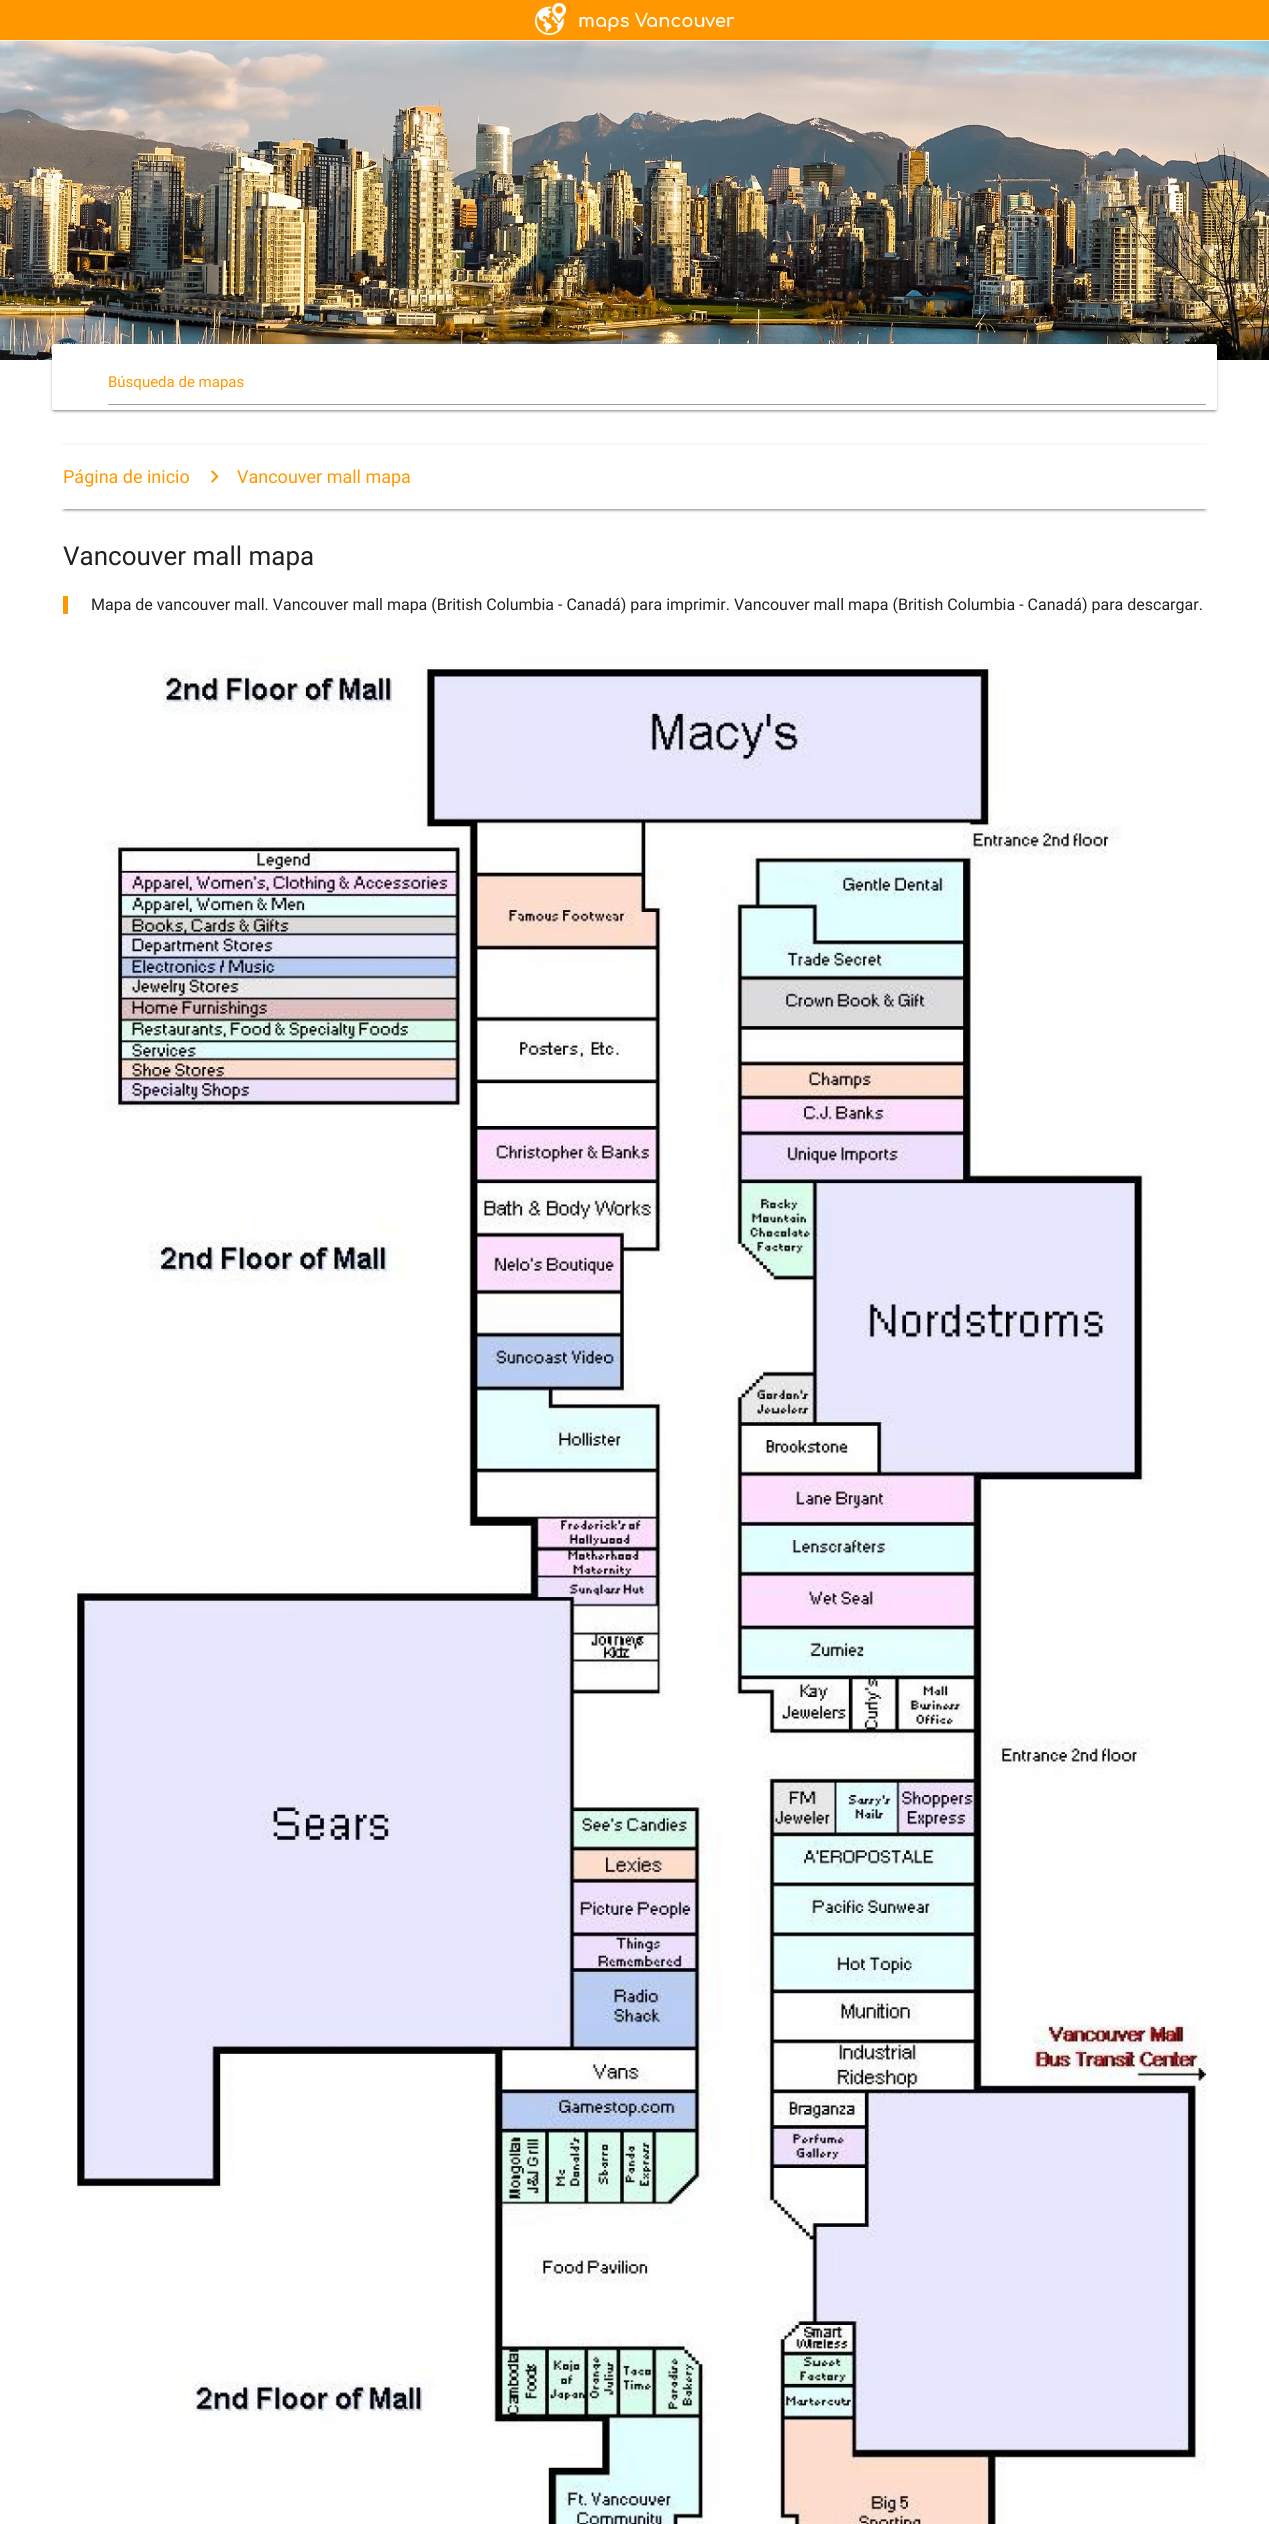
#include <cairo.h>
#include <math.h>
#include <stddef.h>


static void round_rect(cairo_t *cr, double x, double y, double w, double h, double r) {
    cairo_new_sub_path(cr);
    cairo_arc(cr, x + w - r, y + h - r, r, 0, M_PI / 2);
    cairo_arc(cr, x + r, y + h - r, r, M_PI / 2, M_PI);
    cairo_arc(cr, x + r, y + r, r, M_PI, 1.5 * M_PI);
    cairo_arc(cr, x + w - r, y + r, r, 1.5 * M_PI, 2 * M_PI);
    cairo_close_path(cr);
}

static void shadow(cairo_t *cr, double x, double y, double w, double h, double r, double blur, double alpha) {
    cairo_push_group_with_content(cr, CAIRO_CONTENT_ALPHA);
    cairo_set_operator(cr, CAIRO_OPERATOR_SOURCE);
    for (int i = 15; i >= -15 && fmin(w, h) + blur * i / 3 > 0; i -= 2) {
        double e = blur * i / 6;
        cairo_set_source_rgba(cr, 0, 0, 0, alpha * erfc((i - 1) / 8.5) / 2);
        round_rect(cr, x - e, y - e, w + 2 * e, h + 2 * e, fmax(0, fmin(r + e + blur * .6, fmin(w, h) / 2 + e)));
        cairo_fill(cr);
    }
    cairo_pattern_t *soft = cairo_pop_group(cr);
    cairo_mask(cr, soft);
    cairo_pattern_destroy(soft);
}

static void picture(cairo_t *cr, const char *path, double x, double y, double w, double h) {
    cairo_surface_t *image = cairo_image_surface_create_from_png(path);
    cairo_save(cr);
    cairo_set_source_surface(cr, image, x, y);
    cairo_rectangle(cr, x, y, w, h);
    cairo_fill(cr);
    cairo_restore(cr);
    cairo_surface_destroy(image);
}

int main(void) {
    cairo_surface_t *surface = cairo_image_surface_create(CAIRO_FORMAT_RGB24, 1269, 2524);
    cairo_t *cr = cairo_create(surface);
    cairo_font_options_t *options = cairo_font_options_create();
    cairo_font_options_set_hint_metrics(options, CAIRO_HINT_METRICS_OFF);
    cairo_font_options_set_hint_style(options, CAIRO_HINT_STYLE_NONE);
    cairo_set_font_options(cr, options);
    cairo_set_miter_limit(cr, 4);
    cairo_set_source_rgb(cr, 1, 1, 1);
    cairo_paint(cr);
    cairo_set_source_rgb(cr, 1, 0.596, 0);
    cairo_rectangle(cr, 0, 0, 1269, 40);
    cairo_fill(cr);
    picture(cr, "img1.png", 535, 3, 200, 32);
    picture(cr, "img2.png", 0, 40, 1269, 320);
    cairo_set_source_rgb(cr, 0, 0, 0);
    shadow(cr, 54, 349, 1161, 62, 0, 0.5, 0.2);
    shadow(cr, 52, 345, 1165, 66, 2, 2.5, 0.12);
    shadow(cr, 52, 346, 1165, 66, 2, 1, 0.14);
    cairo_set_source_rgb(cr, 1, 1, 1);
    round_rect(cr, 52, 344, 1165, 66, 2);
    cairo_fill(cr);
    cairo_select_font_face(cr, "Roboto", CAIRO_FONT_SLANT_NORMAL, CAIRO_FONT_WEIGHT_NORMAL);
    cairo_set_font_size(cr, 15);
    cairo_set_source_rgb(cr, 1, 0.596, 0);
    cairo_move_to(cr, 108, 387);
    cairo_show_text(cr, "Búsqueda de mapas");
    cairo_set_source_rgb(cr, 0.62, 0.62, 0.62);
    cairo_rectangle(cr, 108, 404, 1098, 1);
    cairo_fill(cr);
    cairo_set_source_rgb(cr, 0, 0, 0);
    shadow(cr, 65, 450, 1139, 60, 0, 0.5, 0.2);
    shadow(cr, 63, 446, 1143, 64, 0, 2.5, 0.12);
    shadow(cr, 63, 447, 1143, 64, 0, 1, 0.14);
    cairo_set_source_rgb(cr, 1, 1, 1);
    cairo_rectangle(cr, 60, 445, 1149, 64);
    cairo_fill(cr);
    cairo_set_font_size(cr, 18);
    cairo_set_source_rgb(cr, 1, 0.596, 0);
    cairo_move_to(cr, 63, 483);
    cairo_show_text(cr, "Página de inicio");
    picture(cr, "img3.png", 211, 470, 8, 13);
    cairo_move_to(cr, 237, 483);
    cairo_show_text(cr, "Vancouver mall mapa");
    cairo_set_font_size(cr, 26);
    cairo_set_source_rgb(cr, 0.129, 0.129, 0.129);
    cairo_move_to(cr, 63, 565);
    cairo_show_text(cr, "Vancouver mall mapa");
    cairo_set_source_rgb(cr, 1, 0.596, 0);
    cairo_rectangle(cr, 63, 596, 5, 18);
    cairo_fill(cr);
    cairo_set_font_size(cr, 16);
    cairo_set_source_rgb(cr, 0.129, 0.129, 0.129);
    cairo_move_to(cr, 91, 610);
    cairo_show_text(cr, "Mapa de vancouver mall. Vancouver mall mapa (British Columbia - Canadá) para imprimir. Vancouver mall mapa (British Columbia - Canadá) para descargar.");
    picture(cr, "img4.png", 71, 655, 1135, 1869);
    cairo_surface_write_to_png(surface, "page.png");
    cairo_font_options_destroy(options);
    cairo_destroy(cr);
    cairo_surface_destroy(surface);
    return 0;
}
